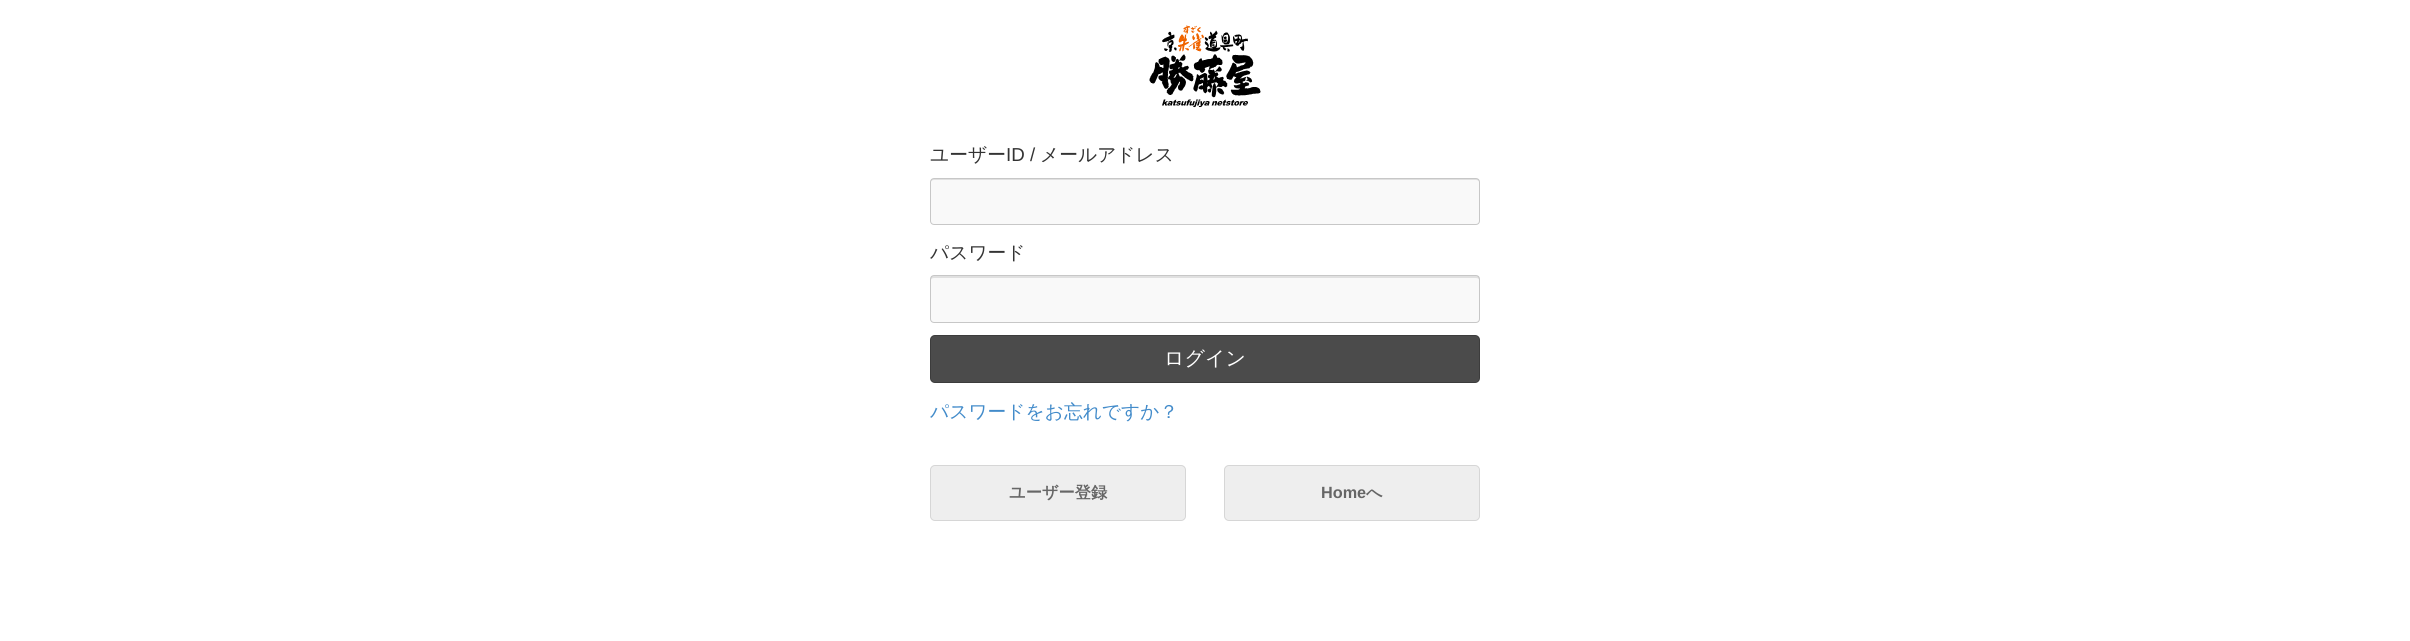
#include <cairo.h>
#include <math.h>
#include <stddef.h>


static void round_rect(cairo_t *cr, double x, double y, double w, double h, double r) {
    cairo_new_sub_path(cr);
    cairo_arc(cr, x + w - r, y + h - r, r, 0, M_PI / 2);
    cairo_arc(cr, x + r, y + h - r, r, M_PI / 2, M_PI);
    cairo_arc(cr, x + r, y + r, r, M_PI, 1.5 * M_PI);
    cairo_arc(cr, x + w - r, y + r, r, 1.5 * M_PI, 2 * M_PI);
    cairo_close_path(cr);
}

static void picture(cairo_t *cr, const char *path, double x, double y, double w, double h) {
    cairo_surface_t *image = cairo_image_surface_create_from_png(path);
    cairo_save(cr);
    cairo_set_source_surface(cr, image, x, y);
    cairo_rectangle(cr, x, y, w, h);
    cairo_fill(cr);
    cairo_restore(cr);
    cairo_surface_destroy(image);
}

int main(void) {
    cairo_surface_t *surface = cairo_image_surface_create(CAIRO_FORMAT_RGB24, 2410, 641);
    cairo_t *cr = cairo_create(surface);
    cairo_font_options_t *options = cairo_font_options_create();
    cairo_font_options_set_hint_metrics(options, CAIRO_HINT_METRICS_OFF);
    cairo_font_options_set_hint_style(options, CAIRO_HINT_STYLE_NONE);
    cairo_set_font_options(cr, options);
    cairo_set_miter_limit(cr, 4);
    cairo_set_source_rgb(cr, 1, 1, 1);
    cairo_paint(cr);
    picture(cr, "img1.png", 1149, 25, 112, 83);
    cairo_select_font_face(cr, "WenQuanYi Zen Hei Medium", CAIRO_FONT_SLANT_NORMAL, CAIRO_FONT_WEIGHT_NORMAL);
    cairo_set_font_size(cr, 18.75);
    cairo_set_source_rgb(cr, 0.2, 0.2, 0.2);
    cairo_move_to(cr, 930, 161);
    cairo_show_text(cr, "ユーザー");
    cairo_select_font_face(cr, "Liberation Sans", CAIRO_FONT_SLANT_NORMAL, CAIRO_FONT_WEIGHT_NORMAL);
    cairo_move_to(cr, 1006, 161);
    cairo_show_text(cr, "ID /");
    cairo_select_font_face(cr, "WenQuanYi Zen Hei Medium", CAIRO_FONT_SLANT_NORMAL, CAIRO_FONT_WEIGHT_NORMAL);
    cairo_move_to(cr, 1040, 161);
    cairo_show_text(cr, "メールアドレス");
    cairo_set_source_rgb(cr, 0.976, 0.976, 0.976);
    round_rect(cr, 930, 178, 550, 47, 4);
    cairo_fill(cr);
    cairo_set_source_rgb(cr, 0.878, 0.878, 0.878);
    cairo_new_path(cr);
    cairo_move_to(cr, 934, 180);
    cairo_line_to(cr, 1476, 180);
    cairo_curve_to(cr, 1478, 180, 1479, 181, 1479, 182);
    cairo_curve_to(cr, 1479, 180, 1478, 179, 1476, 179);
    cairo_line_to(cr, 934, 179);
    cairo_curve_to(cr, 932, 179, 931, 180, 931, 182);
    cairo_curve_to(cr, 931, 181, 932, 180, 934, 180);
    cairo_close_path(cr);
    cairo_fill(cr);
    round_rect(cr, 930.5, 178.5, 549, 46, 3.5);
    cairo_set_source_rgba(cr, 0, 0, 0, 0.2);
    cairo_set_line_width(cr, 1);
    cairo_stroke(cr);
    cairo_set_source_rgb(cr, 0.2, 0.2, 0.2);
    cairo_move_to(cr, 930, 259);
    cairo_show_text(cr, "パスワード");
    cairo_set_source_rgb(cr, 0.976, 0.976, 0.976);
    round_rect(cr, 930, 275, 550, 48, 4);
    cairo_fill(cr);
    cairo_set_source_rgb(cr, 0.878, 0.878, 0.878);
    cairo_new_path(cr);
    cairo_move_to(cr, 934, 278);
    cairo_line_to(cr, 1476, 278);
    cairo_curve_to(cr, 1478, 278, 1479, 279, 1479, 280);
    cairo_line_to(cr, 1479, 278);
    cairo_curve_to(cr, 1479, 277, 1478, 276, 1476, 276);
    cairo_line_to(cr, 934, 276);
    cairo_curve_to(cr, 932, 276, 931, 277, 931, 278);
    cairo_line_to(cr, 931, 280);
    cairo_curve_to(cr, 931, 279, 932, 278, 934, 278);
    cairo_close_path(cr);
    cairo_fill(cr);
    round_rect(cr, 930.5, 275.5, 549, 47, 3.5);
    cairo_set_source_rgba(cr, 0, 0, 0, 0.2);
    cairo_stroke(cr);
    cairo_set_source_rgb(cr, 0.294, 0.294, 0.294);
    round_rect(cr, 930, 335, 550, 48, 5);
    cairo_fill(cr);
    round_rect(cr, 930.5, 335.5, 549, 47, 4.5);
    cairo_set_source_rgba(cr, 0, 0, 0, 0.2);
    cairo_stroke(cr);
    cairo_set_font_size(cr, 20);
    cairo_set_source_rgb(cr, 1, 1, 1);
    cairo_move_to(cr, 1164, 365);
    cairo_show_text(cr, "ログイン");
    cairo_set_font_size(cr, 18.75);
    cairo_set_source_rgb(cr, 0.259, 0.545, 0.792);
    cairo_move_to(cr, 930, 418);
    cairo_show_text(cr, "パスワードをお忘れですか？");
    cairo_set_source_rgb(cr, 0.933, 0.933, 0.933);
    round_rect(cr, 930.5, 465.5, 255, 55, 4.5);
    cairo_fill_preserve(cr);
    cairo_set_source_rgb(cr, 0.839, 0.839, 0.839);
    cairo_stroke(cr);
    cairo_select_font_face(cr, "WenQuanYi Zen Hei", CAIRO_FONT_SLANT_NORMAL, CAIRO_FONT_WEIGHT_BOLD);
    cairo_set_font_size(cr, 16.25);
    cairo_set_source_rgb(cr, 0.4, 0.4, 0.4);
    cairo_move_to(cr, 1009, 498);
    cairo_show_text(cr, "ユーザー登録");
    cairo_set_source_rgb(cr, 0.933, 0.933, 0.933);
    round_rect(cr, 1224.5, 465.5, 255, 55, 4.5);
    cairo_fill_preserve(cr);
    cairo_set_source_rgb(cr, 0.839, 0.839, 0.839);
    cairo_stroke(cr);
    cairo_select_font_face(cr, "Liberation Sans", CAIRO_FONT_SLANT_NORMAL, CAIRO_FONT_WEIGHT_BOLD);
    cairo_set_source_rgb(cr, 0.4, 0.4, 0.4);
    cairo_move_to(cr, 1321, 498);
    cairo_show_text(cr, "Home");
    cairo_select_font_face(cr, "WenQuanYi Zen Hei", CAIRO_FONT_SLANT_NORMAL, CAIRO_FONT_WEIGHT_BOLD);
    cairo_move_to(cr, 1366, 498);
    cairo_show_text(cr, "へ");
    cairo_surface_write_to_png(surface, "page.png");
    cairo_font_options_destroy(options);
    cairo_destroy(cr);
    cairo_surface_destroy(surface);
    return 0;
}
